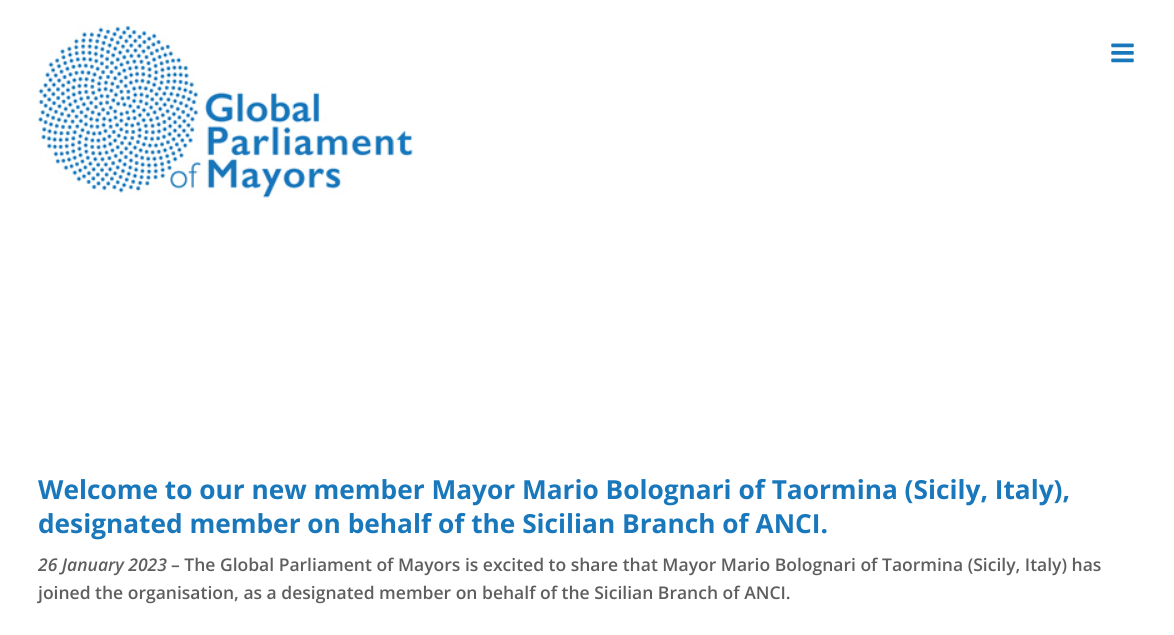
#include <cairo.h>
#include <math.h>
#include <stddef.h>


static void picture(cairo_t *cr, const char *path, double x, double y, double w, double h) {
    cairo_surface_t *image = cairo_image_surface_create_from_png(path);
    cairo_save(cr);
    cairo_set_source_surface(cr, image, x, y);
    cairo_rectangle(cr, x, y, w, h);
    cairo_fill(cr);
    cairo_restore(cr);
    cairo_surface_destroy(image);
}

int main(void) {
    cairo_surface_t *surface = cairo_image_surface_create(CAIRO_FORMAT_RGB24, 1174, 635);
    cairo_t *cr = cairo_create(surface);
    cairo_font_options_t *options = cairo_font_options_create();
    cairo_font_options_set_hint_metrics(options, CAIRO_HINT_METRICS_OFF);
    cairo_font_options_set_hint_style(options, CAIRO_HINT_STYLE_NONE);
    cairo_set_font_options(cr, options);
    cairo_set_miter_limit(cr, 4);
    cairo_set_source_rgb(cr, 1, 1, 1);
    cairo_paint(cr);
    picture(cr, "img1.png", 37, 25, 376, 173);
    picture(cr, "img2.png", 1111, 43, 23, 20);
    cairo_select_font_face(cr, "Open Sans", CAIRO_FONT_SLANT_NORMAL, CAIRO_FONT_WEIGHT_BOLD);
    cairo_set_font_size(cr, 26.25);
    cairo_set_source_rgb(cr, 0.098, 0.467, 0.733);
    cairo_move_to(cr, 38, 499);
    cairo_show_text(cr, "Welcome to our new member Mayor Mario Bolognari of Taormina (Sicily, Italy),");
    cairo_move_to(cr, 38, 533);
    cairo_show_text(cr, "designated member on behalf of the Sicilian Branch of ANCI.");
    cairo_select_font_face(cr, "Open Sans SemiBold", CAIRO_FONT_SLANT_ITALIC, CAIRO_FONT_WEIGHT_NORMAL);
    cairo_set_font_size(cr, 17.5);
    cairo_set_source_rgb(cr, 0.369, 0.369, 0.369);
    cairo_move_to(cr, 38, 571);
    cairo_show_text(cr, "26 January 2023");
    cairo_select_font_face(cr, "Open Sans SemiBold", CAIRO_FONT_SLANT_NORMAL, CAIRO_FONT_WEIGHT_NORMAL);
    cairo_move_to(cr, 171, 571);
    cairo_show_text(cr, "– The Global Parliament of Mayors is excited to share that Mayor Mario Bolognari of Taormina (Sicily, Italy) has");
    cairo_move_to(cr, 38, 599);
    cairo_show_text(cr, "joined the organisation, as a designated member on behalf of the Sicilian Branch of ANCI.");
    cairo_surface_write_to_png(surface, "page.png");
    cairo_font_options_destroy(options);
    cairo_destroy(cr);
    cairo_surface_destroy(surface);
    return 0;
}
